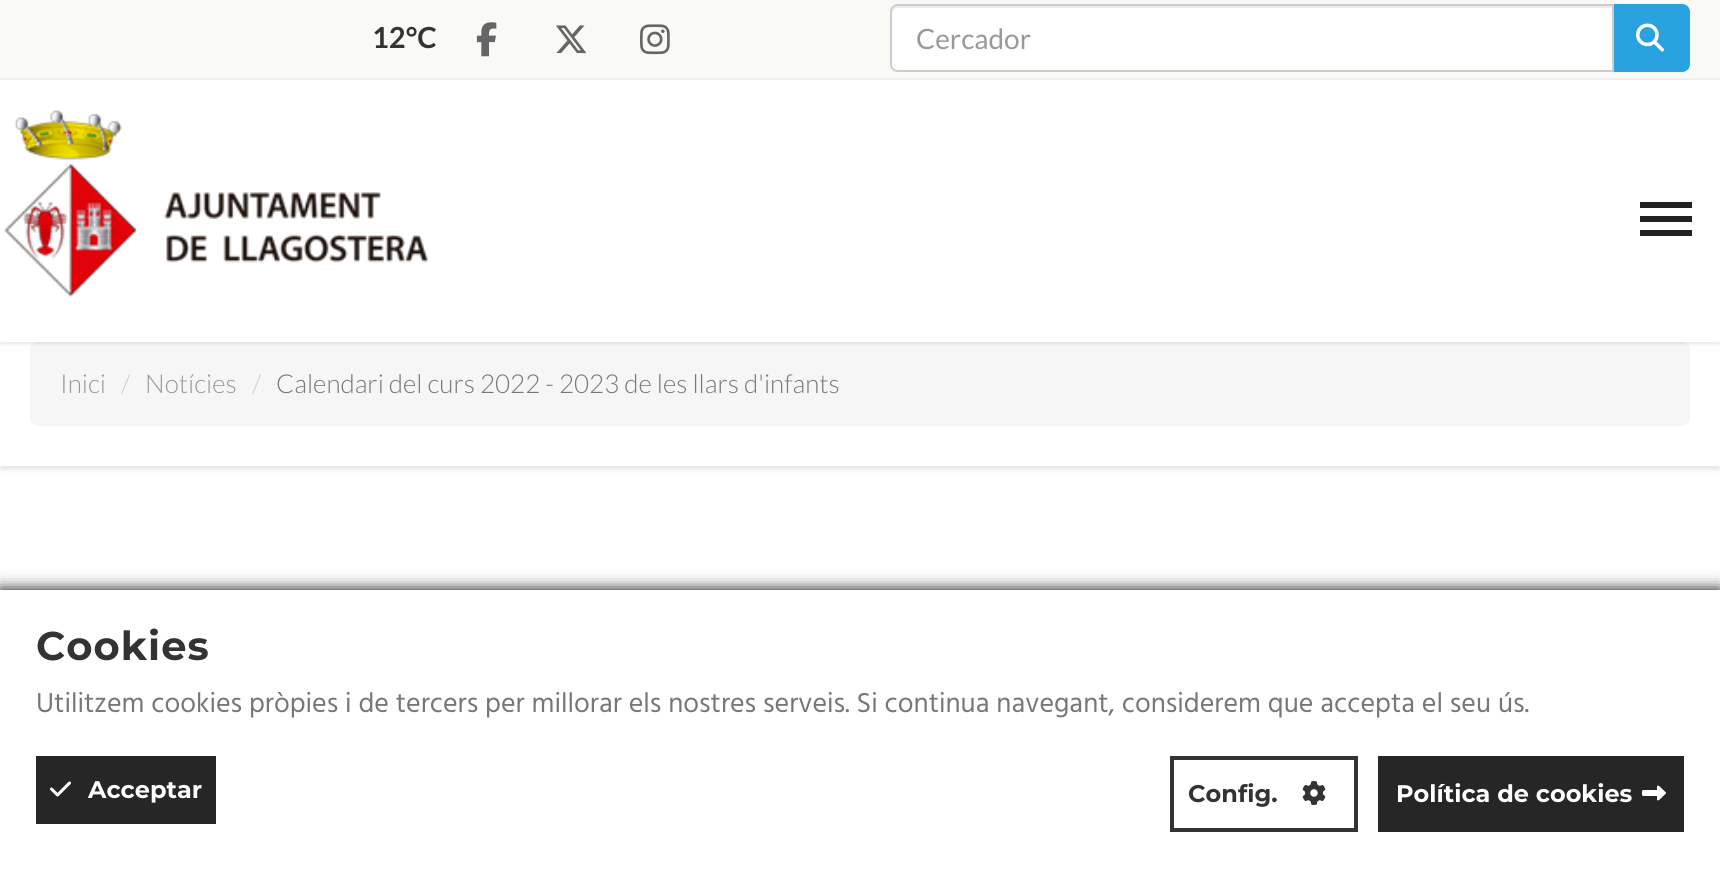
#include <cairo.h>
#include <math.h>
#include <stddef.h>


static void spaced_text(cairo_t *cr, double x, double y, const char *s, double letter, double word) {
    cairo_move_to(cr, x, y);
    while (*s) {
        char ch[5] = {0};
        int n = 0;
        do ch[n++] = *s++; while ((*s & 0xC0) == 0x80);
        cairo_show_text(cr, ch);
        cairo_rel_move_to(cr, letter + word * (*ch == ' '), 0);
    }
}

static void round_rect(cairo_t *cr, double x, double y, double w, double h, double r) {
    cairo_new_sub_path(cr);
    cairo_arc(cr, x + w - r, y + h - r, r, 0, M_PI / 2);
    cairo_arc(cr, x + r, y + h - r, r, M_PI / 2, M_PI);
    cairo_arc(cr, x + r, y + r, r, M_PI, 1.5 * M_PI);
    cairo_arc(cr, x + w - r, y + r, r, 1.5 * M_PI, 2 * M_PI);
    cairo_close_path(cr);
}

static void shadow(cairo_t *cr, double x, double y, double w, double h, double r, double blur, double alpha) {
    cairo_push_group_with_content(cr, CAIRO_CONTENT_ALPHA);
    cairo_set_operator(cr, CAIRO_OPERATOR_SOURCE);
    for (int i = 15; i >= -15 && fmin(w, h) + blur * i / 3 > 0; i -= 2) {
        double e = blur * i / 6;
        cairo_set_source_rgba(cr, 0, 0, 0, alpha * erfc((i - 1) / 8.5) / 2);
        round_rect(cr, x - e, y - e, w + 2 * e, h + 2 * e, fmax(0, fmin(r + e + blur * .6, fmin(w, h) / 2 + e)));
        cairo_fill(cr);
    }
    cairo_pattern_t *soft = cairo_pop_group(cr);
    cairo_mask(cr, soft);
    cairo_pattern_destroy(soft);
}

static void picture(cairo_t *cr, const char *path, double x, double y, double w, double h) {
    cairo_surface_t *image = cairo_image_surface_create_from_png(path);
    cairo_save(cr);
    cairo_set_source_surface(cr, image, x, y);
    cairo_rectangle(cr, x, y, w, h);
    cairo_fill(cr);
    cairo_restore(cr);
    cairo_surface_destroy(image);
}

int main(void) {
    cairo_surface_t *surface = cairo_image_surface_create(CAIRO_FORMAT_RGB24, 1720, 872);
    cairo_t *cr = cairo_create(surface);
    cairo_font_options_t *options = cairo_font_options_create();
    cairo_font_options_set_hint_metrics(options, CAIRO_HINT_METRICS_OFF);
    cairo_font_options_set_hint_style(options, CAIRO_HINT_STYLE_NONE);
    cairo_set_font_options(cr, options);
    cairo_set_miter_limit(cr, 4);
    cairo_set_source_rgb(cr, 1, 1, 1);
    cairo_paint(cr);
    cairo_set_source_rgb(cr, 0.976, 0.973, 0.961);
    cairo_rectangle(cr, 0, 0, 1720, 78);
    cairo_fill(cr);
    cairo_set_source_rgb(cr, 0.933, 0.933, 0.933);
    cairo_rectangle(cr, 0, 78, 1720, 2);
    cairo_fill(cr);
    cairo_select_font_face(cr, "Lato", CAIRO_FONT_SLANT_NORMAL, CAIRO_FONT_WEIGHT_BOLD);
    cairo_set_font_size(cr, 29);
    cairo_set_source_rgb(cr, 0.2, 0.2, 0.2);
    cairo_move_to(cr, 372, 48);
    cairo_show_text(cr, "12°C");
    picture(cr, "img1.png", 476, 22, 21, 35);
    picture(cr, "img2.png", 556, 25, 31, 29);
    picture(cr, "img3.png", 640, 24, 30, 31);
    cairo_set_source_rgb(cr, 0.161, 0.639, 0.878);
    cairo_new_path(cr);
    cairo_move_to(cr, 1612, 4);
    cairo_line_to(cr, 1682, 4);
    cairo_curve_to(cr, 1686.5, 4, 1690, 7.5, 1690, 12);
    cairo_line_to(cr, 1690, 64);
    cairo_curve_to(cr, 1690, 68.5, 1686.5, 72, 1682, 72);
    cairo_line_to(cr, 1612, 72);
    cairo_close_path(cr);
    cairo_fill(cr);
    cairo_set_source_rgb(cr, 1, 1, 1);
    cairo_new_path(cr);
    cairo_move_to(cr, 898, 4);
    cairo_line_to(cr, 1614, 4);
    cairo_line_to(cr, 1614, 72);
    cairo_line_to(cr, 898, 72);
    cairo_curve_to(cr, 893.5, 72, 890, 68.5, 890, 64);
    cairo_line_to(cr, 890, 12);
    cairo_curve_to(cr, 890, 7.5, 893.5, 4, 898, 4);
    cairo_close_path(cr);
    cairo_fill(cr);
    cairo_set_source_rgb(cr, 0.925, 0.925, 0.925);
    cairo_new_path(cr);
    cairo_move_to(cr, 898, 8);
    cairo_line_to(cr, 1612, 8);
    cairo_line_to(cr, 1612, 6);
    cairo_line_to(cr, 898, 6);
    cairo_curve_to(cr, 895, 6, 892, 9, 892, 12);
    cairo_line_to(cr, 892, 14);
    cairo_curve_to(cr, 892, 11, 895, 8, 898, 8);
    cairo_close_path(cr);
    cairo_fill(cr);
    cairo_new_path(cr);
    cairo_move_to(cr, 898, 5);
    cairo_line_to(cr, 1613, 5);
    cairo_line_to(cr, 1613, 71);
    cairo_line_to(cr, 898, 71);
    cairo_curve_to(cr, 894, 71, 891, 68, 891, 64);
    cairo_line_to(cr, 891, 12);
    cairo_curve_to(cr, 891, 8, 894, 5, 898, 5);
    cairo_close_path(cr);
    cairo_set_source_rgb(cr, 0.8, 0.8, 0.8);
    cairo_stroke(cr);
    cairo_select_font_face(cr, "Lato", CAIRO_FONT_SLANT_NORMAL, CAIRO_FONT_WEIGHT_NORMAL);
    cairo_set_font_size(cr, 28);
    cairo_set_source_rgb(cr, 0.6, 0.6, 0.6);
    cairo_move_to(cr, 916, 49);
    cairo_show_text(cr, "Cercador");
    picture(cr, "img4.png", 1636, 23, 28, 29);
    cairo_save(cr);
    cairo_rectangle(cr, 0, 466, 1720, 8);
    cairo_clip(cr);
    cairo_set_source_rgb(cr, 0.902, 0.902, 0.902);
    shadow(cr, 0, 346, 1720, 124, 0, 2, 1);
    cairo_restore(cr);
    cairo_set_source_rgb(cr, 0.961, 0.961, 0.961);
    round_rect(cr, 30, 342, 1660, 84, 8);
    cairo_fill(cr);
    cairo_save(cr);
    cairo_rectangle(cr, 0, 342, 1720, 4);
    cairo_clip(cr);
    cairo_set_source_rgb(cr, 0, 0, 0);
    shadow(cr, 0, 82, 1720, 262, 0, 2, 0.1);
    cairo_restore(cr);
    picture(cr, "img5.png", 4, 110, 425, 187);
    cairo_set_source_rgb(cr, 0.133, 0.133, 0.133);
    cairo_rectangle(cr, 1640, 230, 52, 6);
    cairo_fill(cr);
    cairo_rectangle(cr, 1640, 216, 52, 6);
    cairo_fill(cr);
    cairo_rectangle(cr, 1640, 202, 52, 6);
    cairo_fill(cr);
    cairo_select_font_face(cr, "Lato Light", CAIRO_FONT_SLANT_NORMAL, CAIRO_FONT_WEIGHT_NORMAL);
    cairo_set_font_size(cr, 26);
    cairo_set_source_rgb(cr, 0.6, 0.6, 0.6);
    cairo_move_to(cr, 60, 393);
    cairo_show_text(cr, "Inici");
    cairo_set_source_rgb(cr, 0.8, 0.8, 0.8);
    cairo_move_to(cr, 121, 393);
    cairo_show_text(cr, "/");
    cairo_set_source_rgb(cr, 0.6, 0.6, 0.6);
    cairo_move_to(cr, 145, 393);
    cairo_show_text(cr, "Notícies");
    cairo_set_source_rgb(cr, 0.8, 0.8, 0.8);
    cairo_move_to(cr, 252, 393);
    cairo_show_text(cr, "/");
    cairo_set_source_rgb(cr, 0.467, 0.467, 0.467);
    cairo_move_to(cr, 276, 393);
    cairo_show_text(cr, "Calendari del curs 2022 - 2023 de les llars d'infants");
    cairo_set_source_rgb(cr, 0, 0, 0);
    shadow(cr, 0, 590, 1720, 282, 0, 8, 1);
    cairo_set_source_rgb(cr, 1, 1, 1);
    cairo_rectangle(cr, 0, 590, 1720, 282);
    cairo_fill(cr);
    cairo_select_font_face(cr, "Montserrat", CAIRO_FONT_SLANT_NORMAL, CAIRO_FONT_WEIGHT_BOLD);
    cairo_set_font_size(cr, 40);
    cairo_set_source_rgb(cr, 0.2, 0.2, 0.2);
    spaced_text(cr, 36, 660, "Cookies", 1, 0);
    cairo_select_font_face(cr, "Hind", CAIRO_FONT_SLANT_NORMAL, CAIRO_FONT_WEIGHT_NORMAL);
    cairo_set_font_size(cr, 28);
    cairo_set_source_rgb(cr, 0.467, 0.467, 0.467);
    cairo_move_to(cr, 36, 712);
    cairo_show_text(cr, "Utilitzem cookies pròpies i de tercers per millorar els nostres serveis. Si continua navegant, considerem que accepta el seu ús.");
    cairo_set_source_rgb(cr, 0.149, 0.149, 0.149);
    cairo_rectangle(cr, 36, 756, 180, 68);
    cairo_fill(cr);
    picture(cr, "img6.png", 50, 781, 21, 16);
    cairo_select_font_face(cr, "Montserrat", CAIRO_FONT_SLANT_NORMAL, CAIRO_FONT_WEIGHT_BOLD);
    cairo_set_font_size(cr, 24);
    cairo_set_source_rgb(cr, 1, 1, 1);
    cairo_move_to(cr, 88, 798);
    cairo_show_text(cr, "Acceptar");
    cairo_rectangle(cr, 1172, 758, 184, 72);
    cairo_set_source_rgb(cr, 0.2, 0.2, 0.2);
    cairo_set_line_width(cr, 4);
    cairo_stroke(cr);
    cairo_move_to(cr, 1188, 802);
    cairo_show_text(cr, "Config.");
    picture(cr, "img7.png", 1302, 781, 24, 24);
    cairo_set_source_rgb(cr, 0.149, 0.149, 0.149);
    cairo_rectangle(cr, 1378, 756, 306, 76);
    cairo_fill(cr);
    cairo_set_source_rgb(cr, 1, 1, 1);
    cairo_move_to(cr, 1396, 802);
    cairo_show_text(cr, "Política de cookies");
    picture(cr, "img8.png", 1642, 785, 24, 16);
    cairo_surface_write_to_png(surface, "page.png");
    cairo_font_options_destroy(options);
    cairo_destroy(cr);
    cairo_surface_destroy(surface);
    return 0;
}
